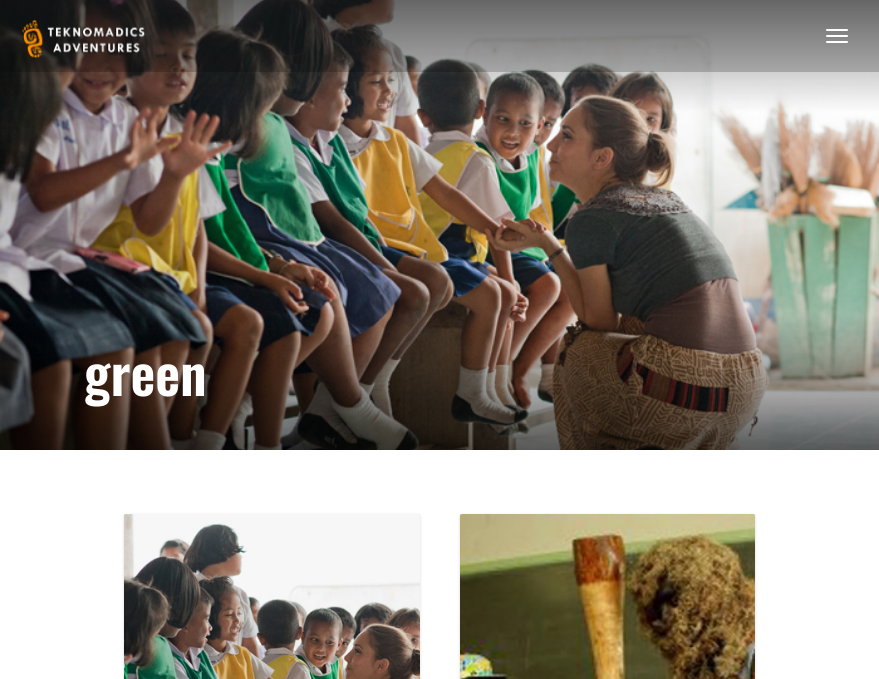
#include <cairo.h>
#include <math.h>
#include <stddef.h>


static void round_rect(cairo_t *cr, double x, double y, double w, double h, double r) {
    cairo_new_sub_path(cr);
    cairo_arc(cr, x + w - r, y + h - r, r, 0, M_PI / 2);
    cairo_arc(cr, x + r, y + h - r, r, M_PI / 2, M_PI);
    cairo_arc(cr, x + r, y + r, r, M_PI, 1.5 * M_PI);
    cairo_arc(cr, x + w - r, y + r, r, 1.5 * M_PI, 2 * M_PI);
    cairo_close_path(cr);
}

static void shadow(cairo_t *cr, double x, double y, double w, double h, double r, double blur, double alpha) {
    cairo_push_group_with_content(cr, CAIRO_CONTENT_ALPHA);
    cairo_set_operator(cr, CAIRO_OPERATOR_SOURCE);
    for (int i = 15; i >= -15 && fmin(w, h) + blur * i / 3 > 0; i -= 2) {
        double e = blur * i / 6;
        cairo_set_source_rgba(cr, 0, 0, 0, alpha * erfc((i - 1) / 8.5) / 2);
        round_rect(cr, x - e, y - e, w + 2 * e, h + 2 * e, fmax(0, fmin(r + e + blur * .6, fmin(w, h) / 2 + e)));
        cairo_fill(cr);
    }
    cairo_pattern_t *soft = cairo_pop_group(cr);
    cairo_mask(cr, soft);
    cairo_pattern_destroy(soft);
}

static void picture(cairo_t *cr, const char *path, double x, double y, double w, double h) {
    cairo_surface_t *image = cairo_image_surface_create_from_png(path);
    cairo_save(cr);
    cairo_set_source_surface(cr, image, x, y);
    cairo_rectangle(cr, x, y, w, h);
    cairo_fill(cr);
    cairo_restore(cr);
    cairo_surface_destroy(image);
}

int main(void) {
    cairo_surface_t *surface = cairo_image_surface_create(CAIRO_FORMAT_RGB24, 879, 679);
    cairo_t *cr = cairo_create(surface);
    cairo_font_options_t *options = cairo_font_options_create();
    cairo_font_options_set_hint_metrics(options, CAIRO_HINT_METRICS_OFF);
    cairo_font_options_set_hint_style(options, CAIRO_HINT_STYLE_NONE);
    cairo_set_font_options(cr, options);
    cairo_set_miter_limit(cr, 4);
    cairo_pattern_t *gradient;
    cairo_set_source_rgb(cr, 1, 1, 1);
    cairo_paint(cr);
    picture(cr, "img2.png", 0, 0, 879, 450);
    cairo_set_source_rgba(cr, 0, 0, 0, 0.2);
    cairo_rectangle(cr, 0, 0, 879, 72);
    cairo_fill(cr);
    picture(cr, "img1.png", 22, 20, 123, 39);
    cairo_set_source_rgb(cr, 1, 1, 1);
    round_rect(cr, 826, 29, 22, 2, 1);
    cairo_fill(cr);
    round_rect(cr, 826, 35, 22, 2, 1);
    cairo_fill(cr);
    round_rect(cr, 826, 41, 22, 2, 1);
    cairo_fill(cr);
    cairo_select_font_face(cr, "Oswald SemiBold", CAIRO_FONT_SLANT_NORMAL, CAIRO_FONT_WEIGHT_NORMAL);
    cairo_set_font_size(cr, 54);
    cairo_move_to(cr, 84, 396);
    cairo_show_text(cr, "green");
    cairo_set_source_rgb(cr, 0, 0, 0);
    shadow(cr, 124, 515, 296, 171, 2, 1.5, 0.15);
    picture(cr, "img3.png", 124, 514, 296, 165);
    gradient = cairo_pattern_create_linear(272, 514, 272, 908);
    cairo_pattern_add_color_stop_rgba(gradient, 0.5, 0, 0, 0, 0.03);
    cairo_pattern_add_color_stop_rgba(gradient, 1, 0, 0, 0, 0.66);
    cairo_set_source(cr, gradient);
    cairo_pattern_destroy(gradient);
    cairo_rectangle(cr, 124, 514, 296, 165);
    cairo_fill(cr);
    cairo_set_source_rgb(cr, 0, 0, 0);
    shadow(cr, 460, 515, 295, 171, 2, 1.5, 0.15);
    picture(cr, "img4.png", 460, 514, 295, 165);
    gradient = cairo_pattern_create_linear(608, 514, 608, 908);
    cairo_pattern_add_color_stop_rgba(gradient, 0.5, 0, 0, 0, 0.03);
    cairo_pattern_add_color_stop_rgba(gradient, 1, 0, 0, 0, 0.66);
    cairo_set_source(cr, gradient);
    cairo_pattern_destroy(gradient);
    cairo_rectangle(cr, 460, 514, 295, 165);
    cairo_fill(cr);
    cairo_surface_write_to_png(surface, "page.png");
    cairo_font_options_destroy(options);
    cairo_destroy(cr);
    cairo_surface_destroy(surface);
    return 0;
}
